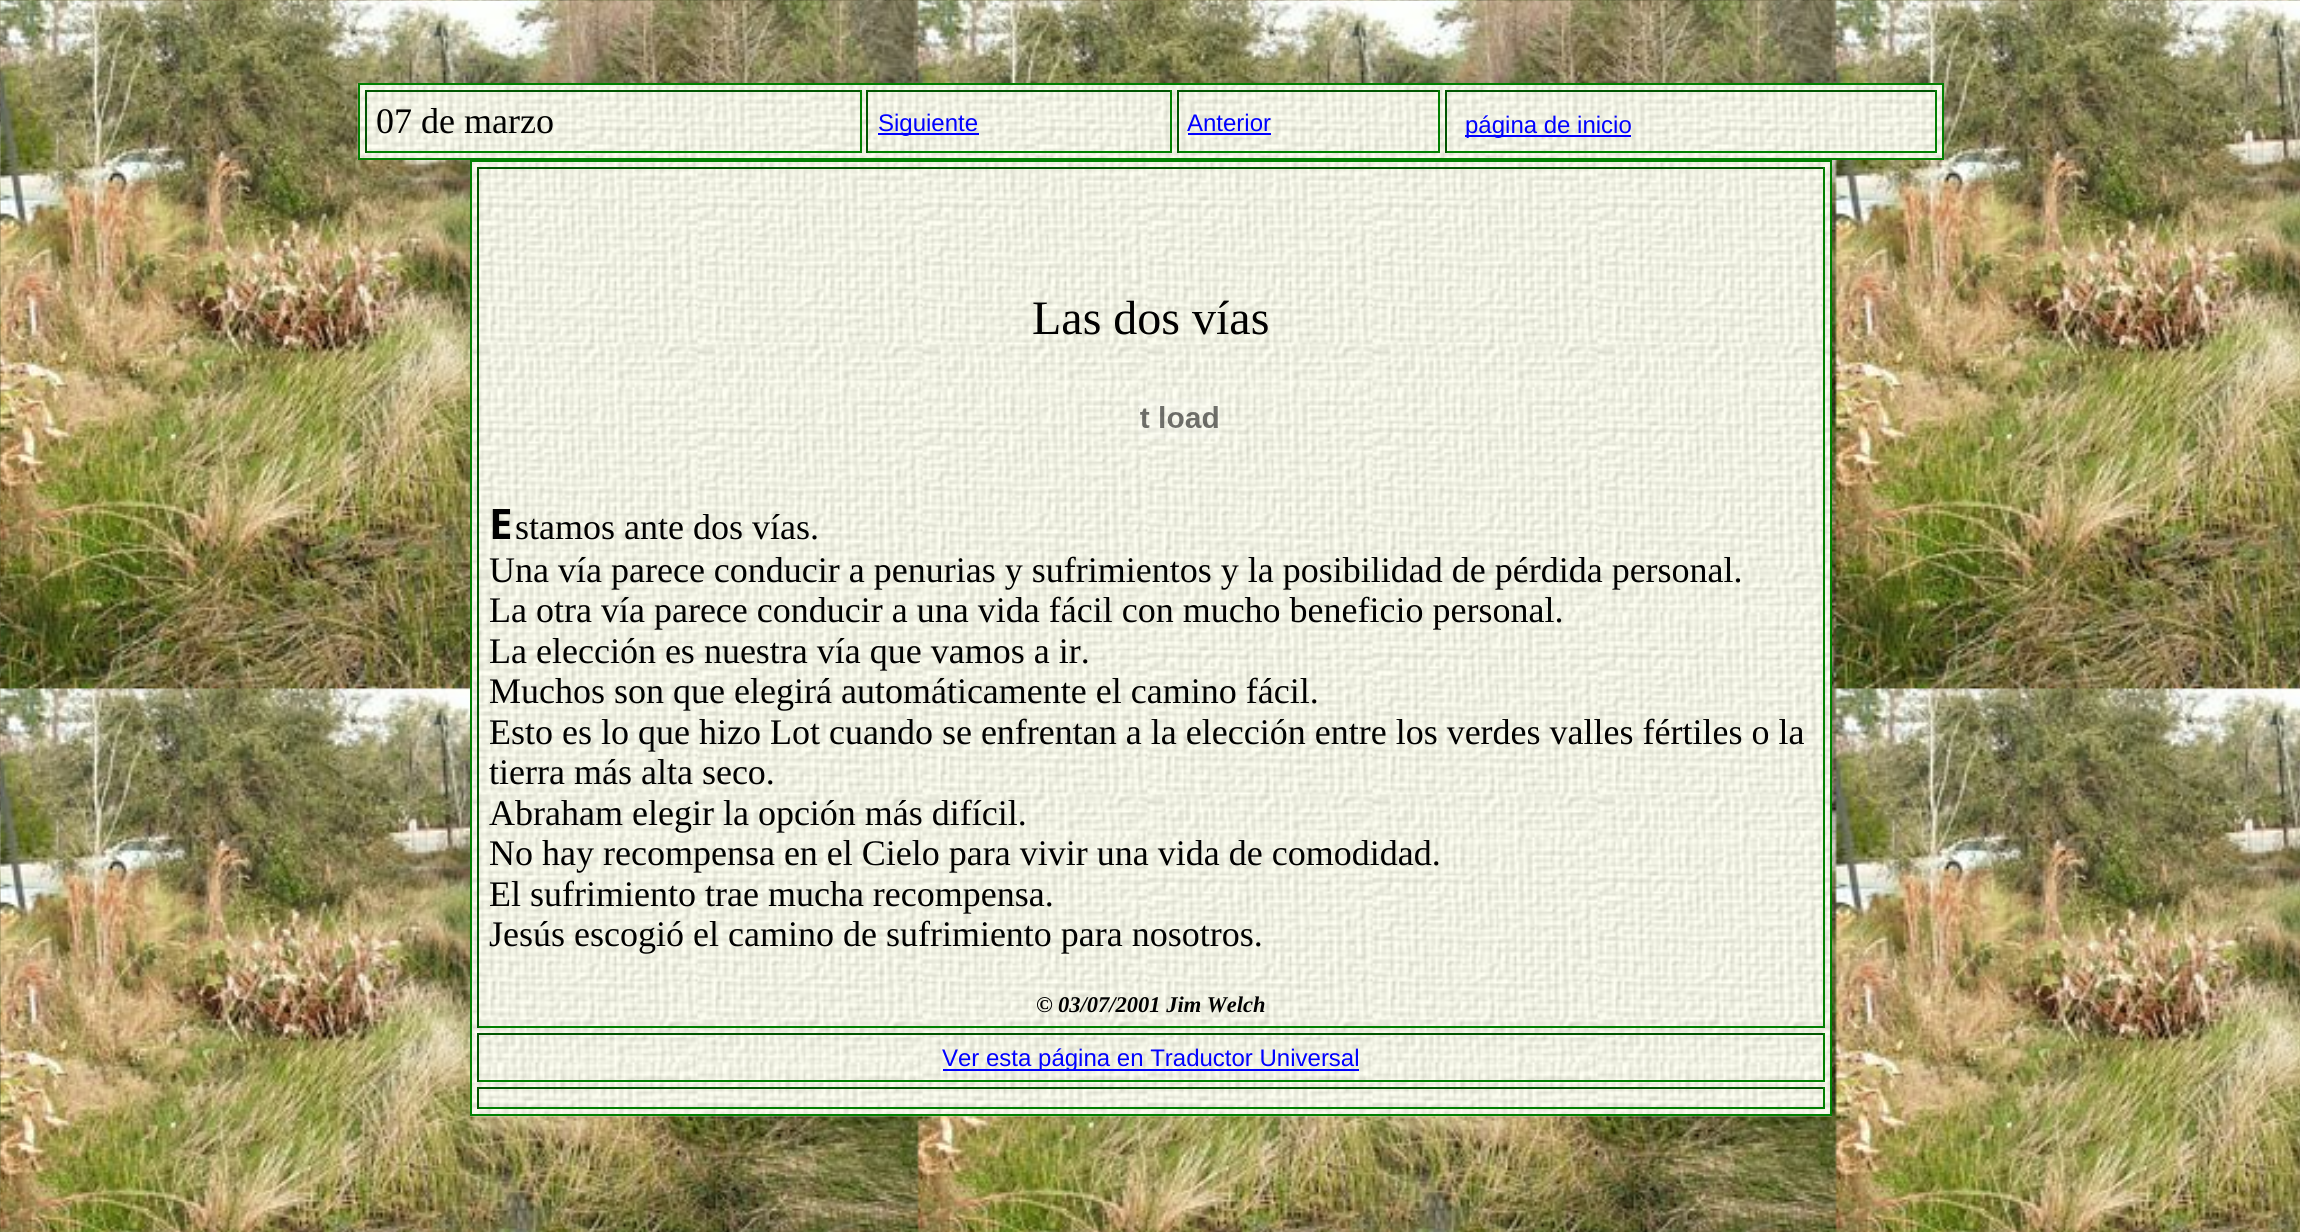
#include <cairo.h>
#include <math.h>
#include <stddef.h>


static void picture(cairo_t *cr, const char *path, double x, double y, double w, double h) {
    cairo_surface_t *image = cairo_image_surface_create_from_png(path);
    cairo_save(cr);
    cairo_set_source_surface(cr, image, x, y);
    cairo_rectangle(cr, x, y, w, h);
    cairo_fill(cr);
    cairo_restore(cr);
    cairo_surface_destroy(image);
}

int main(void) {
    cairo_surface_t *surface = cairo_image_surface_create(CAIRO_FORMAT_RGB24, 2300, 1232);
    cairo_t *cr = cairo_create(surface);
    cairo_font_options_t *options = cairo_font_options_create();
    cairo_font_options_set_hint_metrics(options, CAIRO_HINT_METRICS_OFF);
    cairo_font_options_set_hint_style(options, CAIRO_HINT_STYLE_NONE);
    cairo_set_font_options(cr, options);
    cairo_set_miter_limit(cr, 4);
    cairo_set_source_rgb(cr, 1, 1, 1);
    cairo_paint(cr);
    picture(cr, "img1.png", 0, 0, 2300, 1232);
    picture(cr, "img2.png", 357, 83, 1585, 77);
    cairo_rectangle(cr, 359, 84, 1584, 75);
    cairo_set_source_rgb(cr, 0, 0.502, 0);
    cairo_stroke(cr);
    cairo_set_source_rgb(cr, 0, 0.333, 0);
    cairo_rectangle(cr, 365, 90, 497, 2);
    cairo_fill(cr);
    cairo_set_source_rgb(cr, 0, 0.502, 0);
    cairo_rectangle(cr, 860, 90, 2, 63);
    cairo_fill(cr);
    cairo_rectangle(cr, 365, 151, 497, 2);
    cairo_fill(cr);
    cairo_set_source_rgb(cr, 0, 0.333, 0);
    cairo_rectangle(cr, 365, 90, 2, 63);
    cairo_fill(cr);
    cairo_select_font_face(cr, "Liberation Serif", CAIRO_FONT_SLANT_NORMAL, CAIRO_FONT_WEIGHT_NORMAL);
    cairo_set_font_size(cr, 36);
    cairo_set_source_rgb(cr, 0, 0, 0);
    cairo_move_to(cr, 376, 133);
    cairo_show_text(cr, "07 de marzo");
    cairo_set_source_rgb(cr, 0, 0.333, 0);
    cairo_rectangle(cr, 866, 90, 306, 2);
    cairo_fill(cr);
    cairo_set_source_rgb(cr, 0, 0.502, 0);
    cairo_rectangle(cr, 1170, 90, 2, 63);
    cairo_fill(cr);
    cairo_rectangle(cr, 866, 151, 306, 2);
    cairo_fill(cr);
    cairo_set_source_rgb(cr, 0, 0.333, 0);
    cairo_rectangle(cr, 866, 90, 2, 63);
    cairo_fill(cr);
    cairo_set_source_rgb(cr, 0, 0, 1);
    cairo_rectangle(cr, 878, 133, 101, 2);
    cairo_fill(cr);
    cairo_select_font_face(cr, "Liberation Sans", CAIRO_FONT_SLANT_NORMAL, CAIRO_FONT_WEIGHT_NORMAL);
    cairo_set_font_size(cr, 24);
    cairo_move_to(cr, 878, 131);
    cairo_show_text(cr, "Siguiente");
    cairo_set_source_rgb(cr, 0, 0.333, 0);
    cairo_rectangle(cr, 1177, 90, 263, 2);
    cairo_fill(cr);
    cairo_set_source_rgb(cr, 0, 0.502, 0);
    cairo_rectangle(cr, 1438, 90, 2, 63);
    cairo_fill(cr);
    cairo_rectangle(cr, 1177, 151, 263, 2);
    cairo_fill(cr);
    cairo_set_source_rgb(cr, 0, 0.333, 0);
    cairo_rectangle(cr, 1177, 90, 2, 63);
    cairo_fill(cr);
    cairo_set_source_rgb(cr, 0, 0, 1);
    cairo_move_to(cr, 1187, 131);
    cairo_show_text(cr, "Anterior");
    cairo_rectangle(cr, 1188, 133, 83, 2);
    cairo_fill(cr);
    cairo_set_source_rgb(cr, 0, 0.333, 0);
    cairo_rectangle(cr, 1445, 90, 492, 2);
    cairo_fill(cr);
    cairo_set_source_rgb(cr, 0, 0.502, 0);
    cairo_rectangle(cr, 1935, 90, 2, 63);
    cairo_fill(cr);
    cairo_rectangle(cr, 1445, 151, 492, 2);
    cairo_fill(cr);
    cairo_set_source_rgb(cr, 0, 0.333, 0);
    cairo_rectangle(cr, 1445, 90, 2, 63);
    cairo_fill(cr);
    cairo_set_source_rgb(cr, 0, 0, 1);
    cairo_rectangle(cr, 1465, 135, 166, 2);
    cairo_fill(cr);
    cairo_move_to(cr, 1465, 133);
    cairo_show_text(cr, "página de inicio");
    picture(cr, "img3.png", 470, 162, 1362, 955);
    cairo_rectangle(cr, 471, 161, 1360, 954);
    cairo_set_source_rgb(cr, 0, 0.502, 0);
    cairo_stroke(cr);
    cairo_set_source_rgb(cr, 0, 0.333, 0);
    cairo_rectangle(cr, 477, 167, 1348, 2);
    cairo_fill(cr);
    cairo_set_source_rgb(cr, 0, 0.502, 0);
    cairo_rectangle(cr, 1823, 167, 2, 861);
    cairo_fill(cr);
    cairo_rectangle(cr, 477, 1026, 1348, 2);
    cairo_fill(cr);
    cairo_set_source_rgb(cr, 0, 0.333, 0);
    cairo_rectangle(cr, 477, 167, 2, 861);
    cairo_fill(cr);
    cairo_select_font_face(cr, "Liberation Serif", CAIRO_FONT_SLANT_NORMAL, CAIRO_FONT_WEIGHT_NORMAL);
    cairo_set_font_size(cr, 48);
    cairo_set_source_rgb(cr, 0, 0, 0);
    cairo_move_to(cr, 1032, 334);
    cairo_show_text(cr, "Las dos vías");
    picture(cr, "img4.png", 1138, 398, 81, 41);
    cairo_select_font_face(cr, "Noto Sans", CAIRO_FONT_SLANT_NORMAL, CAIRO_FONT_WEIGHT_BOLD);
    cairo_set_font_size(cr, 42);
    cairo_move_to(cr, 489, 539);
    cairo_show_text(cr, "E");
    cairo_select_font_face(cr, "Liberation Serif", CAIRO_FONT_SLANT_NORMAL, CAIRO_FONT_WEIGHT_NORMAL);
    cairo_set_font_size(cr, 36);
    cairo_move_to(cr, 515, 539);
    cairo_show_text(cr, "stamos ante dos vías.");
    cairo_move_to(cr, 489, 582);
    cairo_show_text(cr, "Una vía parece conducir a penurias y sufrimientos y la posibilidad de pérdida personal.");
    cairo_move_to(cr, 489, 622);
    cairo_show_text(cr, "La otra vía parece conducir a una vida fácil con mucho beneficio personal.");
    cairo_move_to(cr, 489, 663);
    cairo_show_text(cr, "La elección es nuestra vía que vamos a ir.");
    cairo_move_to(cr, 489, 703);
    cairo_show_text(cr, "Muchos son que elegirá automáticamente el camino fácil.");
    cairo_move_to(cr, 489, 744);
    cairo_show_text(cr, "Esto es lo que hizo Lot cuando se enfrentan a la elección entre los verdes valles fértiles o la");
    cairo_move_to(cr, 489, 784);
    cairo_show_text(cr, "tierra más alta seco.");
    cairo_move_to(cr, 489, 825);
    cairo_show_text(cr, "Abraham elegir la opción más difícil.");
    cairo_move_to(cr, 489, 865);
    cairo_show_text(cr, "No hay recompensa en el Cielo para vivir una vida de comodidad.");
    cairo_move_to(cr, 489, 906);
    cairo_show_text(cr, "El sufrimiento trae mucha recompensa.");
    cairo_move_to(cr, 489, 946);
    cairo_show_text(cr, "Jesús escogió el camino de sufrimiento para nosotros.");
    cairo_select_font_face(cr, "Liberation Serif", CAIRO_FONT_SLANT_NORMAL, CAIRO_FONT_WEIGHT_BOLD);
    cairo_set_font_size(cr, 22.5);
    cairo_move_to(cr, 1036, 1012);
    cairo_show_text(cr, "©");
    cairo_select_font_face(cr, "Liberation Serif", CAIRO_FONT_SLANT_ITALIC, CAIRO_FONT_WEIGHT_BOLD);
    cairo_move_to(cr, 1058, 1012);
    cairo_show_text(cr, "03/07/2001 Jim Welch");
    cairo_set_source_rgb(cr, 0, 0.333, 0);
    cairo_rectangle(cr, 477, 1033, 1348, 2);
    cairo_fill(cr);
    cairo_set_source_rgb(cr, 0, 0.502, 0);
    cairo_rectangle(cr, 1823, 1033, 2, 49);
    cairo_fill(cr);
    cairo_rectangle(cr, 477, 1080, 1348, 2);
    cairo_fill(cr);
    cairo_set_source_rgb(cr, 0, 0.333, 0);
    cairo_rectangle(cr, 477, 1033, 2, 49);
    cairo_fill(cr);
    cairo_set_source_rgb(cr, 0, 0, 1);
    cairo_rectangle(cr, 943, 1069, 416, 2);
    cairo_fill(cr);
    cairo_select_font_face(cr, "Liberation Sans", CAIRO_FONT_SLANT_NORMAL, CAIRO_FONT_WEIGHT_NORMAL);
    cairo_set_font_size(cr, 24);
    cairo_move_to(cr, 942, 1066);
    cairo_show_text(cr, "Ver esta página en Traductor Universal");
    cairo_set_source_rgb(cr, 0, 0.333, 0);
    cairo_rectangle(cr, 477, 1087, 1348, 2);
    cairo_fill(cr);
    cairo_set_source_rgb(cr, 0, 0.502, 0);
    cairo_rectangle(cr, 1823, 1087, 2, 22);
    cairo_fill(cr);
    cairo_rectangle(cr, 477, 1107, 1348, 2);
    cairo_fill(cr);
    cairo_set_source_rgb(cr, 0, 0.333, 0);
    cairo_rectangle(cr, 477, 1087, 2, 22);
    cairo_fill(cr);
    cairo_surface_write_to_png(surface, "page.png");
    cairo_font_options_destroy(options);
    cairo_destroy(cr);
    cairo_surface_destroy(surface);
    return 0;
}
